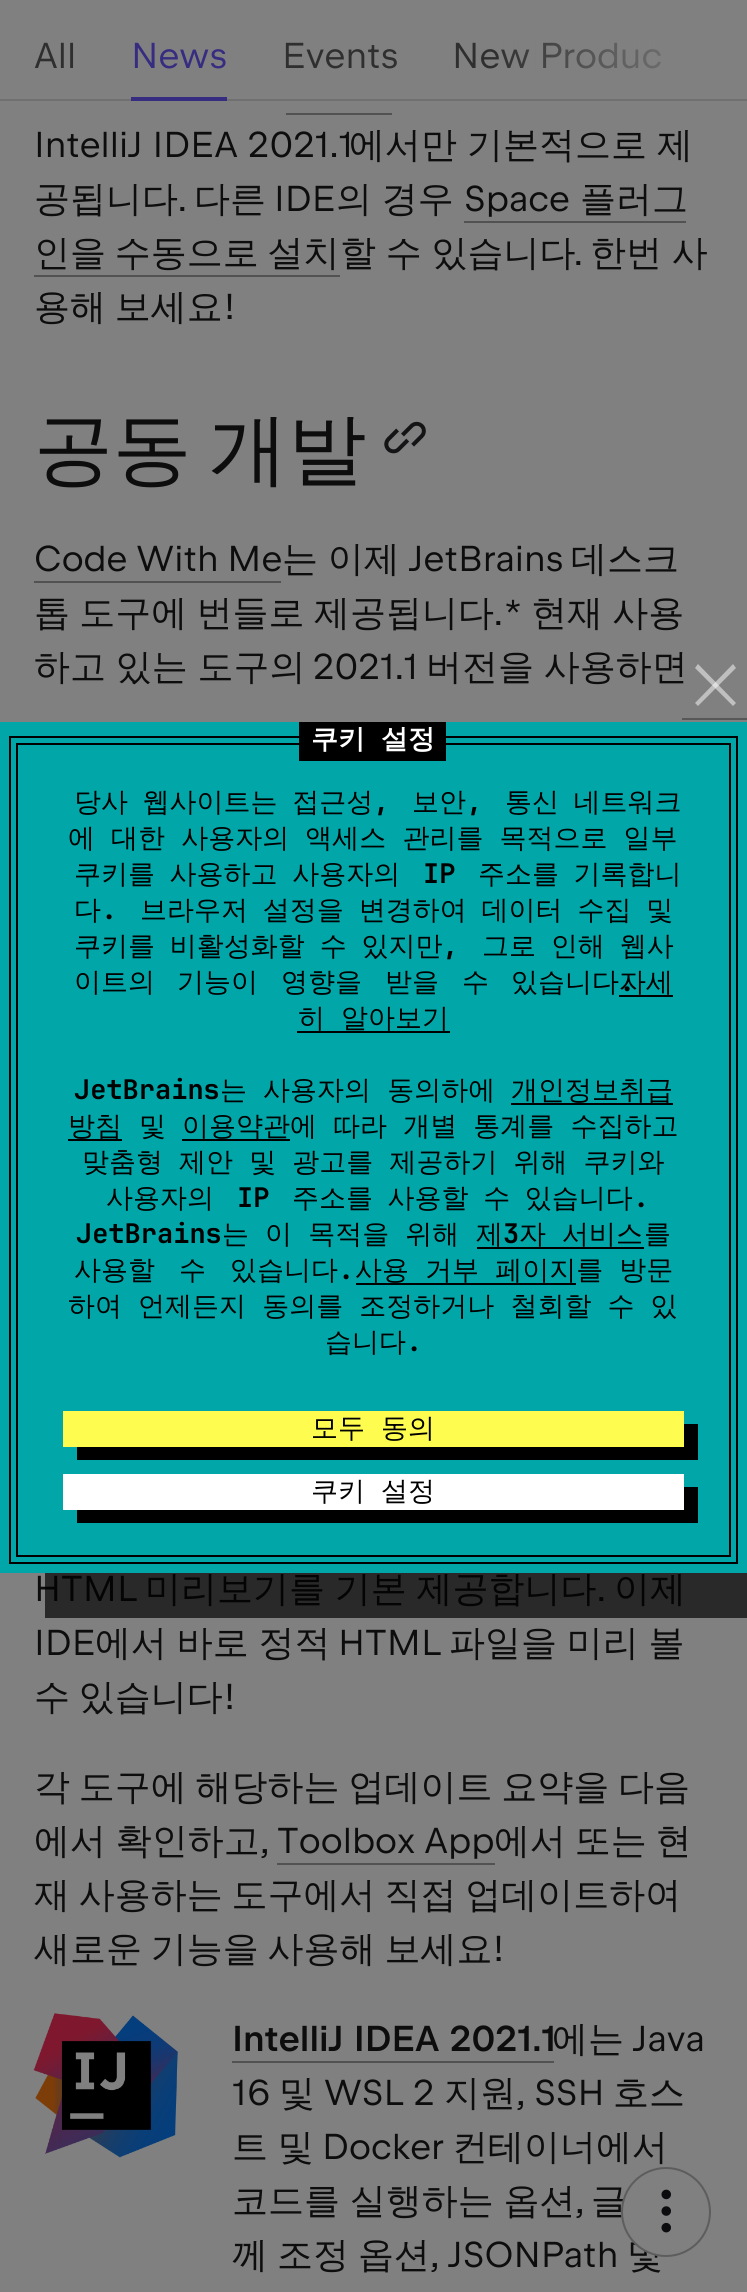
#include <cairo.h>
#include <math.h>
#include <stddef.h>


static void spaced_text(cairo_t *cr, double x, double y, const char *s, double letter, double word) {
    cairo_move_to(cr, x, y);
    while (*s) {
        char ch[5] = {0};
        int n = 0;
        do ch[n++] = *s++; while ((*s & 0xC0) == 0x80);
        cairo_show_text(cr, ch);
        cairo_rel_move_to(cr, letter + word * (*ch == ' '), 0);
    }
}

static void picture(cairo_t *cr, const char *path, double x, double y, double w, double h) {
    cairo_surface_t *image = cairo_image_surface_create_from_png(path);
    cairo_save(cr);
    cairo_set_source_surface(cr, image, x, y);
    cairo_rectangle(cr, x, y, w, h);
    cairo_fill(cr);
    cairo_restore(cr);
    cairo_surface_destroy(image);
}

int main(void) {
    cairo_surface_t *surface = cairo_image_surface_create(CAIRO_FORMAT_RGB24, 747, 2292);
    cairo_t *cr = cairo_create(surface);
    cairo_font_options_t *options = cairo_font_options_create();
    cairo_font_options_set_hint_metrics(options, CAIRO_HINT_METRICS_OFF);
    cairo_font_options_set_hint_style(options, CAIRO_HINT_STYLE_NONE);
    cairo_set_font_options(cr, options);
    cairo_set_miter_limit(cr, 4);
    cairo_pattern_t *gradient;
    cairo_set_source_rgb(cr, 0.502, 0.502, 0.502);
    cairo_paint(cr);
    cairo_select_font_face(cr, "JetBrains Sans", CAIRO_FONT_SLANT_NORMAL, CAIRO_FONT_WEIGHT_NORMAL);
    cairo_set_font_size(cr, 36);
    cairo_set_source_rgb(cr, 0.184, 0.184, 0.188);
    cairo_move_to(cr, 34, 68);
    cairo_show_text(cr, "All");
    cairo_set_source_rgb(cr, 0.212, 0.173, 0.502);
    cairo_move_to(cr, 131, 68);
    cairo_show_text(cr, "News");
    cairo_set_source_rgb(cr, 0.439, 0.439, 0.439);
    cairo_rectangle(cr, 0, 99, 747, 2);
    cairo_fill(cr);
    cairo_set_source_rgb(cr, 0.212, 0.173, 0.502);
    cairo_rectangle(cr, 131, 97, 96, 4);
    cairo_fill(cr);
    cairo_set_source_rgb(cr, 0.184, 0.184, 0.188);
    cairo_move_to(cr, 282, 68);
    cairo_show_text(cr, "Events");
    cairo_move_to(cr, 452, 68);
    cairo_show_text(cr, "New Produc");
    gradient = cairo_pattern_create_linear(491, 48, 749, 48);
    cairo_pattern_add_color_stop_rgba(gradient, 0, 0.502, 0.502, 0.502, 0);
    cairo_pattern_add_color_stop_rgba(gradient, 0.5, 0.502, 0.502, 0.502, 0.6);
    cairo_pattern_add_color_stop_rgba(gradient, 1, 0.502, 0.502, 0.502, 1);
    cairo_set_source(cr, gradient);
    cairo_pattern_destroy(gradient);
    cairo_rectangle(cr, 502, 42, 159, 27);
    cairo_fill(cr);
    cairo_set_source_rgb(cr, 0.322, 0.322, 0.322);
    cairo_rectangle(cr, 286, 113, 106, 2);
    cairo_fill(cr);
    cairo_set_source_rgb(cr, 0.051, 0.051, 0.055);
    spaced_text(cr, 34, 157, "IntelliJ IDEA 2021.1", 0, 1);
    cairo_select_font_face(cr, "WenQuanYi Zen Hei Medium", CAIRO_FONT_SLANT_NORMAL, CAIRO_FONT_WEIGHT_NORMAL);
    cairo_move_to(cr, 349, 157);
    cairo_show_text(cr, "에서만");
    cairo_move_to(cr, 467, 157);
    cairo_show_text(cr, "기본적으로");
    cairo_move_to(cr, 657, 157);
    cairo_show_text(cr, "제");
    cairo_move_to(cr, 34, 211);
    cairo_show_text(cr, "공됩니다");
    cairo_select_font_face(cr, "JetBrains Sans", CAIRO_FONT_SLANT_NORMAL, CAIRO_FONT_WEIGHT_NORMAL);
    cairo_move_to(cr, 178, 211);
    cairo_show_text(cr, ".");
    cairo_select_font_face(cr, "WenQuanYi Zen Hei Medium", CAIRO_FONT_SLANT_NORMAL, CAIRO_FONT_WEIGHT_NORMAL);
    cairo_move_to(cr, 194, 211);
    cairo_show_text(cr, "다른");
    cairo_select_font_face(cr, "JetBrains Sans", CAIRO_FONT_SLANT_NORMAL, CAIRO_FONT_WEIGHT_NORMAL);
    cairo_move_to(cr, 274, 211);
    cairo_show_text(cr, "IDE");
    cairo_select_font_face(cr, "WenQuanYi Zen Hei Medium", CAIRO_FONT_SLANT_NORMAL, CAIRO_FONT_WEIGHT_NORMAL);
    spaced_text(cr, 336, 211, "의 경우", 0, -1);
    cairo_select_font_face(cr, "JetBrains Sans", CAIRO_FONT_SLANT_NORMAL, CAIRO_FONT_WEIGHT_NORMAL);
    cairo_move_to(cr, 464, 211);
    cairo_show_text(cr, "Space");
    cairo_set_source_rgb(cr, 0.322, 0.322, 0.322);
    cairo_rectangle(cr, 464, 221, 222, 2);
    cairo_fill(cr);
    cairo_select_font_face(cr, "WenQuanYi Zen Hei Medium", CAIRO_FONT_SLANT_NORMAL, CAIRO_FONT_WEIGHT_NORMAL);
    cairo_set_source_rgb(cr, 0.051, 0.051, 0.055);
    cairo_move_to(cr, 580, 211);
    cairo_show_text(cr, "플러그");
    spaced_text(cr, 34, 265, "인을 수동으로 설치", 0, -2);
    cairo_set_source_rgb(cr, 0.322, 0.322, 0.322);
    cairo_rectangle(cr, 34, 275, 306, 2);
    cairo_fill(cr);
    cairo_set_source_rgb(cr, 0.051, 0.051, 0.055);
    spaced_text(cr, 340, 265, "할 수 있습니다", 0, -1);
    cairo_select_font_face(cr, "JetBrains Sans", CAIRO_FONT_SLANT_NORMAL, CAIRO_FONT_WEIGHT_NORMAL);
    cairo_move_to(cr, 574, 265);
    cairo_show_text(cr, ".");
    cairo_select_font_face(cr, "WenQuanYi Zen Hei Medium", CAIRO_FONT_SLANT_NORMAL, CAIRO_FONT_WEIGHT_NORMAL);
    spaced_text(cr, 590, 265, "한번 사", 0, -1);
    spaced_text(cr, 34, 319, "용해 보세요", 0, -2);
    cairo_select_font_face(cr, "JetBrains Sans", CAIRO_FONT_SLANT_NORMAL, CAIRO_FONT_WEIGHT_NORMAL);
    cairo_move_to(cr, 223, 319);
    cairo_show_text(cr, "!");
    cairo_select_font_face(cr, "WenQuanYi Zen Hei Medium", CAIRO_FONT_SLANT_NORMAL, CAIRO_FONT_WEIGHT_NORMAL);
    cairo_set_font_size(cr, 78.75);
    spaced_text(cr, 34, 476, "공동 개발", 0, -6);
    picture(cr, "img1.png", 384, 421, 42, 33);
    cairo_select_font_face(cr, "JetBrains Sans", CAIRO_FONT_SLANT_NORMAL, CAIRO_FONT_WEIGHT_NORMAL);
    cairo_set_font_size(cr, 36);
    cairo_move_to(cr, 34, 571);
    cairo_show_text(cr, "Code With Me");
    cairo_set_source_rgb(cr, 0.322, 0.322, 0.322);
    cairo_rectangle(cr, 34, 581, 247, 2);
    cairo_fill(cr);
    cairo_select_font_face(cr, "WenQuanYi Zen Hei Medium", CAIRO_FONT_SLANT_NORMAL, CAIRO_FONT_WEIGHT_NORMAL);
    cairo_set_source_rgb(cr, 0.051, 0.051, 0.055);
    spaced_text(cr, 282, 571, "는 이제", 0, -1);
    cairo_select_font_face(cr, "JetBrains Sans", CAIRO_FONT_SLANT_NORMAL, CAIRO_FONT_WEIGHT_NORMAL);
    cairo_move_to(cr, 409, 571);
    cairo_show_text(cr, "JetBrains");
    cairo_select_font_face(cr, "WenQuanYi Zen Hei Medium", CAIRO_FONT_SLANT_NORMAL, CAIRO_FONT_WEIGHT_NORMAL);
    cairo_move_to(cr, 571, 571);
    cairo_show_text(cr, "데스크");
    spaced_text(cr, 34, 625, "톱 도구에 번들로 제공됩니다", 0, -1.5);
    cairo_select_font_face(cr, "JetBrains Sans", CAIRO_FONT_SLANT_NORMAL, CAIRO_FONT_WEIGHT_NORMAL);
    cairo_move_to(cr, 494, 625);
    cairo_show_text(cr, ".*");
    cairo_select_font_face(cr, "WenQuanYi Zen Hei Medium", CAIRO_FONT_SLANT_NORMAL, CAIRO_FONT_WEIGHT_NORMAL);
    spaced_text(cr, 531, 625, "현재 사용", 0, -1.5);
    spaced_text(cr, 34, 679, "하고 있는 도구의", 0, -1);
    cairo_select_font_face(cr, "JetBrains Sans", CAIRO_FONT_SLANT_NORMAL, CAIRO_FONT_WEIGHT_NORMAL);
    cairo_move_to(cr, 313, 679);
    cairo_show_text(cr, "2021.1");
    cairo_select_font_face(cr, "WenQuanYi Zen Hei Medium", CAIRO_FONT_SLANT_NORMAL, CAIRO_FONT_WEIGHT_NORMAL);
    spaced_text(cr, 426, 679, "버전을 사용하면", 0, -1);
    cairo_select_font_face(cr, "JetBrains Sans", CAIRO_FONT_SLANT_NORMAL, CAIRO_FONT_WEIGHT_NORMAL);
    cairo_move_to(cr, 34, 1601);
    cairo_show_text(cr, "HTML");
    cairo_select_font_face(cr, "WenQuanYi Zen Hei Medium", CAIRO_FONT_SLANT_NORMAL, CAIRO_FONT_WEIGHT_NORMAL);
    spaced_text(cr, 145, 1601, "미리보기를 기본 제공합니다", 0, -1);
    cairo_select_font_face(cr, "JetBrains Sans", CAIRO_FONT_SLANT_NORMAL, CAIRO_FONT_WEIGHT_NORMAL);
    cairo_move_to(cr, 597, 1601);
    cairo_show_text(cr, ".");
    cairo_select_font_face(cr, "WenQuanYi Zen Hei Medium", CAIRO_FONT_SLANT_NORMAL, CAIRO_FONT_WEIGHT_NORMAL);
    cairo_move_to(cr, 614, 1601);
    cairo_show_text(cr, "이제");
    cairo_select_font_face(cr, "JetBrains Sans", CAIRO_FONT_SLANT_NORMAL, CAIRO_FONT_WEIGHT_NORMAL);
    cairo_move_to(cr, 34, 1655);
    cairo_show_text(cr, "IDE");
    cairo_select_font_face(cr, "WenQuanYi Zen Hei Medium", CAIRO_FONT_SLANT_NORMAL, CAIRO_FONT_WEIGHT_NORMAL);
    spaced_text(cr, 95, 1655, "에서 바로 정적", 0, -1);
    cairo_select_font_face(cr, "JetBrains Sans", CAIRO_FONT_SLANT_NORMAL, CAIRO_FONT_WEIGHT_NORMAL);
    cairo_move_to(cr, 338, 1655);
    cairo_show_text(cr, "HTML");
    cairo_select_font_face(cr, "WenQuanYi Zen Hei Medium", CAIRO_FONT_SLANT_NORMAL, CAIRO_FONT_WEIGHT_NORMAL);
    spaced_text(cr, 449, 1655, "파일을 미리 볼", 0, -1);
    spaced_text(cr, 34, 1709, "수 있습니다", 0, -2);
    cairo_select_font_face(cr, "JetBrains Sans", CAIRO_FONT_SLANT_NORMAL, CAIRO_FONT_WEIGHT_NORMAL);
    cairo_move_to(cr, 223, 1709);
    cairo_show_text(cr, "!");
    cairo_select_font_face(cr, "WenQuanYi Zen Hei Medium", CAIRO_FONT_SLANT_NORMAL, CAIRO_FONT_WEIGHT_NORMAL);
    spaced_text(cr, 34, 1799, "각 도구에 해당하는 업데이트 요약을 다음", 0, -2);
    spaced_text(cr, 34, 1853, "에서 확인하고", 0, -1);
    cairo_select_font_face(cr, "JetBrains Sans", CAIRO_FONT_SLANT_NORMAL, CAIRO_FONT_WEIGHT_NORMAL);
    cairo_move_to(cr, 260, 1853);
    cairo_show_text(cr, ",");
    cairo_move_to(cr, 277, 1853);
    cairo_show_text(cr, "Toolbox App");
    cairo_set_source_rgb(cr, 0.322, 0.322, 0.322);
    cairo_rectangle(cr, 277, 1863, 218, 2);
    cairo_fill(cr);
    cairo_select_font_face(cr, "WenQuanYi Zen Hei Medium", CAIRO_FONT_SLANT_NORMAL, CAIRO_FONT_WEIGHT_NORMAL);
    cairo_set_source_rgb(cr, 0.051, 0.051, 0.055);
    spaced_text(cr, 494, 1853, "에서 또는 현", 0, -2);
    spaced_text(cr, 34, 1907, "재 사용하는 도구에서 직접 업데이트하여", 0, -2);
    spaced_text(cr, 34, 1961, "새로운 기능을 사용해 보세요", 0, -2);
    cairo_select_font_face(cr, "JetBrains Sans", CAIRO_FONT_SLANT_NORMAL, CAIRO_FONT_WEIGHT_NORMAL);
    cairo_move_to(cr, 492, 1961);
    cairo_show_text(cr, "!");
    picture(cr, "img2.png", 33, 2013, 145, 145);
    cairo_select_font_face(cr, "JetBrains Sans SemiBold", CAIRO_FONT_SLANT_NORMAL, CAIRO_FONT_WEIGHT_NORMAL);
    spaced_text(cr, 232, 2051, "IntelliJ IDEA 2021.1", 0, 2);
    cairo_set_source_rgb(cr, 0.322, 0.322, 0.322);
    cairo_rectangle(cr, 232, 2061, 322, 2);
    cairo_fill(cr);
    cairo_select_font_face(cr, "WenQuanYi Zen Hei Medium", CAIRO_FONT_SLANT_NORMAL, CAIRO_FONT_WEIGHT_NORMAL);
    cairo_set_source_rgb(cr, 0.051, 0.051, 0.055);
    cairo_move_to(cr, 552, 2051);
    cairo_show_text(cr, "에는");
    cairo_select_font_face(cr, "JetBrains Sans", CAIRO_FONT_SLANT_NORMAL, CAIRO_FONT_WEIGHT_NORMAL);
    cairo_move_to(cr, 633, 2051);
    cairo_show_text(cr, "Java");
    cairo_move_to(cr, 232, 2105);
    cairo_show_text(cr, "16");
    cairo_select_font_face(cr, "WenQuanYi Zen Hei Medium", CAIRO_FONT_SLANT_NORMAL, CAIRO_FONT_WEIGHT_NORMAL);
    cairo_move_to(cr, 279, 2105);
    cairo_show_text(cr, "및");
    cairo_select_font_face(cr, "JetBrains Sans", CAIRO_FONT_SLANT_NORMAL, CAIRO_FONT_WEIGHT_NORMAL);
    cairo_move_to(cr, 324, 2105);
    cairo_show_text(cr, "WSL 2");
    cairo_select_font_face(cr, "WenQuanYi Zen Hei Medium", CAIRO_FONT_SLANT_NORMAL, CAIRO_FONT_WEIGHT_NORMAL);
    cairo_move_to(cr, 444, 2105);
    cairo_show_text(cr, "지원");
    cairo_select_font_face(cr, "JetBrains Sans", CAIRO_FONT_SLANT_NORMAL, CAIRO_FONT_WEIGHT_NORMAL);
    cairo_move_to(cr, 516, 2105);
    cairo_show_text(cr, ", SSH");
    cairo_select_font_face(cr, "WenQuanYi Zen Hei Medium", CAIRO_FONT_SLANT_NORMAL, CAIRO_FONT_WEIGHT_NORMAL);
    cairo_move_to(cr, 613, 2105);
    cairo_show_text(cr, "호스");
    spaced_text(cr, 232, 2159, "트 및", 0, -1);
    cairo_select_font_face(cr, "JetBrains Sans", CAIRO_FONT_SLANT_NORMAL, CAIRO_FONT_WEIGHT_NORMAL);
    cairo_move_to(cr, 322, 2159);
    cairo_show_text(cr, "Docker");
    cairo_select_font_face(cr, "WenQuanYi Zen Hei Medium", CAIRO_FONT_SLANT_NORMAL, CAIRO_FONT_WEIGHT_NORMAL);
    cairo_move_to(cr, 452, 2159);
    cairo_show_text(cr, "컨테이너에서");
    spaced_text(cr, 232, 2213, "코드를 실행하는 옵션", 0, -1);
    cairo_select_font_face(cr, "JetBrains Sans", CAIRO_FONT_SLANT_NORMAL, CAIRO_FONT_WEIGHT_NORMAL);
    cairo_move_to(cr, 575, 2213);
    cairo_show_text(cr, ",");
    cairo_select_font_face(cr, "WenQuanYi Zen Hei Medium", CAIRO_FONT_SLANT_NORMAL, CAIRO_FONT_WEIGHT_NORMAL);
    spaced_text(cr, 591, 2213, "글", 0, -1);
    cairo_move_to(cr, 232, 2267);
    cairo_show_text(cr, "께");
    cairo_move_to(cr, 277, 2267);
    cairo_show_text(cr, "조정");
    cairo_move_to(cr, 358, 2267);
    cairo_show_text(cr, "옵션");
    cairo_select_font_face(cr, "JetBrains Sans", CAIRO_FONT_SLANT_NORMAL, CAIRO_FONT_WEIGHT_NORMAL);
    cairo_move_to(cr, 430, 2267);
    cairo_show_text(cr, ", JSONPath");
    cairo_select_font_face(cr, "WenQuanYi Zen Hei Medium", CAIRO_FONT_SLANT_NORMAL, CAIRO_FONT_WEIGHT_NORMAL);
    cairo_move_to(cr, 627, 2267);
    cairo_show_text(cr, "및");
    cairo_set_source_rgb(cr, 0.502, 0.502, 0.502);
    cairo_new_path(cr);
    cairo_arc(cr, 666, 2212, 45, 0, 2 * M_PI);
    cairo_fill(cr);
    cairo_arc(cr, 666, 2212, 44, 0, 2 * M_PI);
    cairo_set_source_rgba(cr, 0.051, 0.051, 0.055, 0.3);
    cairo_stroke(cr);
    picture(cr, "img3.png", 661, 2189, 10, 44);
    cairo_set_source_rgba(cr, 0, 0, 0, 0.68);
    cairo_new_path(cr);
    cairo_move_to(cr, 45, 1573);
    cairo_line_to(cr, 45, 1618);
    cairo_line_to(cr, 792, 1618);
    cairo_line_to(cr, 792, 767);
    cairo_line_to(cr, 747, 767);
    cairo_line_to(cr, 747, 1573);
    cairo_close_path(cr);
    cairo_fill(cr);
    cairo_set_source_rgb(cr, 0.004, 0.655, 0.659);
    cairo_rectangle(cr, 0, 722, 747, 851);
    cairo_fill(cr);
    cairo_set_source_rgba(cr, 0.098, 0.098, 0.11, 0.4);
    cairo_rectangle(cr, 682, 718, 65, 2);
    cairo_fill(cr);
    cairo_set_source_rgb(cr, 0.749, 0.749, 0.749);
    cairo_new_path(cr);
    cairo_move_to(cr, 695, 703);
    cairo_line_to(cr, 733, 664);
    cairo_line_to(cr, 736, 668);
    cairo_line_to(cr, 698, 706);
    cairo_close_path(cr);
    cairo_fill(cr);
    cairo_set_source_rgba(cr, 1, 1, 1, 0.5);
    cairo_new_path(cr);
    cairo_move_to(cr, 698, 664);
    cairo_line_to(cr, 736, 703);
    cairo_line_to(cr, 733, 706);
    cairo_line_to(cr, 695, 668);
    cairo_close_path(cr);
    cairo_fill(cr);
    cairo_set_source_rgb(cr, 0, 0, 0);
    cairo_rectangle(cr, 16, 743, 715, 2);
    cairo_fill(cr);
    cairo_rectangle(cr, 729, 743, 2, 814);
    cairo_fill(cr);
    cairo_rectangle(cr, 16, 743, 2, 668);
    cairo_fill(cr);
    cairo_rectangle(cr, 9, 736, 729, 2);
    cairo_fill(cr);
    cairo_rectangle(cr, 299, 722, 147, 39);
    cairo_fill(cr);
    cairo_select_font_face(cr, "WenQuanYi Zen Hei", CAIRO_FONT_SLANT_NORMAL, CAIRO_FONT_WEIGHT_BOLD);
    cairo_set_font_size(cr, 27);
    cairo_set_source_rgb(cr, 1, 1, 1);
    spaced_text(cr, 311, 748, "쿠키 설정", 0, 8);
    cairo_set_source_rgb(cr, 0, 0, 0);
    cairo_rectangle(cr, 736, 736, 2, 828);
    cairo_fill(cr);
    cairo_rectangle(cr, 9, 736, 2, 673);
    cairo_fill(cr);
    cairo_select_font_face(cr, "WenQuanYi Zen Hei Medium", CAIRO_FONT_SLANT_NORMAL, CAIRO_FONT_WEIGHT_NORMAL);
    spaced_text(cr, 74, 811, "당사 웹사이트는 접근성", 0, 6.5);
    cairo_select_font_face(cr, "JetBrains Mono", CAIRO_FONT_SLANT_NORMAL, CAIRO_FONT_WEIGHT_BOLD);
    cairo_move_to(cr, 373, 811);
    cairo_show_text(cr, ",");
    cairo_select_font_face(cr, "WenQuanYi Zen Hei Medium", CAIRO_FONT_SLANT_NORMAL, CAIRO_FONT_WEIGHT_NORMAL);
    cairo_move_to(cr, 412, 811);
    cairo_show_text(cr, "보안");
    cairo_select_font_face(cr, "JetBrains Mono", CAIRO_FONT_SLANT_NORMAL, CAIRO_FONT_WEIGHT_BOLD);
    cairo_move_to(cr, 466, 811);
    cairo_show_text(cr, ",");
    cairo_select_font_face(cr, "WenQuanYi Zen Hei Medium", CAIRO_FONT_SLANT_NORMAL, CAIRO_FONT_WEIGHT_NORMAL);
    spaced_text(cr, 505, 811, "통신 네트워크", 0, 6.5);
    spaced_text(cr, 68, 847, "에 대한 사용자의 액세스 관리를 목적으로 일부", 0, 8);
    spaced_text(cr, 74, 883, "쿠키를 사용하고 사용자의", 0, 6.5);
    cairo_select_font_face(cr, "JetBrains Mono", CAIRO_FONT_SLANT_NORMAL, CAIRO_FONT_WEIGHT_BOLD);
    cairo_move_to(cr, 423, 883);
    cairo_show_text(cr, "IP");
    cairo_select_font_face(cr, "WenQuanYi Zen Hei Medium", CAIRO_FONT_SLANT_NORMAL, CAIRO_FONT_WEIGHT_NORMAL);
    spaced_text(cr, 478, 883, "주소를 기록합니", 0, 6.5);
    cairo_move_to(cr, 74, 919);
    cairo_show_text(cr, "다");
    cairo_select_font_face(cr, "JetBrains Mono", CAIRO_FONT_SLANT_NORMAL, CAIRO_FONT_WEIGHT_BOLD);
    cairo_move_to(cr, 101, 919);
    cairo_show_text(cr, ".");
    cairo_select_font_face(cr, "WenQuanYi Zen Hei Medium", CAIRO_FONT_SLANT_NORMAL, CAIRO_FONT_WEIGHT_NORMAL);
    spaced_text(cr, 140, 919, "브라우저 설정을 변경하여 데이터 수집 및", 0, 6.75);
    spaced_text(cr, 74, 955, "쿠키를 비활성화할 수 있지만", 0, 6.75);
    cairo_select_font_face(cr, "JetBrains Mono", CAIRO_FONT_SLANT_NORMAL, CAIRO_FONT_WEIGHT_BOLD);
    cairo_move_to(cr, 442, 955);
    cairo_show_text(cr, ",");
    cairo_select_font_face(cr, "WenQuanYi Zen Hei Medium", CAIRO_FONT_SLANT_NORMAL, CAIRO_FONT_WEIGHT_NORMAL);
    spaced_text(cr, 482, 955, "그로 인해 웹사", 0, 6.75);
    cairo_move_to(cr, 74, 991);
    cairo_show_text(cr, "이트의");
    cairo_move_to(cr, 177, 991);
    cairo_show_text(cr, "기능이");
    cairo_move_to(cr, 281, 991);
    cairo_show_text(cr, "영향을");
    cairo_move_to(cr, 385, 991);
    cairo_show_text(cr, "받을");
    cairo_move_to(cr, 462, 991);
    cairo_show_text(cr, "수");
    cairo_move_to(cr, 511, 991);
    cairo_show_text(cr, "있습니다");
    cairo_select_font_face(cr, "JetBrains Mono", CAIRO_FONT_SLANT_NORMAL, CAIRO_FONT_WEIGHT_BOLD);
    cairo_move_to(cr, 619, 991);
    cairo_show_text(cr, ".");
    cairo_select_font_face(cr, "WenQuanYi Zen Hei Medium", CAIRO_FONT_SLANT_NORMAL, CAIRO_FONT_WEIGHT_NORMAL);
    cairo_move_to(cr, 619, 991);
    cairo_show_text(cr, "자세");
    cairo_rectangle(cr, 619, 995, 54, 2);
    cairo_fill(cr);
    spaced_text(cr, 298, 1027, "히 알아보기", 0, 8);
    cairo_rectangle(cr, 297, 1031, 153, 2);
    cairo_fill(cr);
    cairo_select_font_face(cr, "JetBrains Mono", CAIRO_FONT_SLANT_NORMAL, CAIRO_FONT_WEIGHT_BOLD);
    cairo_move_to(cr, 74, 1099);
    cairo_show_text(cr, "JetBrains");
    cairo_select_font_face(cr, "WenQuanYi Zen Hei Medium", CAIRO_FONT_SLANT_NORMAL, CAIRO_FONT_WEIGHT_NORMAL);
    spaced_text(cr, 220, 1099, "는 사용자의 동의하에", 0, 8);
    cairo_rectangle(cr, 511, 1103, 162, 2);
    cairo_fill(cr);
    cairo_move_to(cr, 511, 1099);
    cairo_show_text(cr, "개인정보취급");
    cairo_rectangle(cr, 68, 1139, 54, 2);
    cairo_fill(cr);
    cairo_move_to(cr, 68, 1135);
    cairo_show_text(cr, "방침");
    cairo_move_to(cr, 139, 1135);
    cairo_show_text(cr, "및");
    cairo_rectangle(cr, 182, 1139, 108, 2);
    cairo_fill(cr);
    cairo_move_to(cr, 182, 1135);
    cairo_show_text(cr, "이용약관");
    spaced_text(cr, 290, 1135, "에 따라 개별 통계를 수집하고", 0, 8);
    spaced_text(cr, 82, 1171, "맞춤형 제안 및 광고를 제공하기 위해 쿠키와", 0, 8);
    cairo_move_to(cr, 106, 1207);
    cairo_show_text(cr, "사용자의");
    cairo_select_font_face(cr, "JetBrains Mono", CAIRO_FONT_SLANT_NORMAL, CAIRO_FONT_WEIGHT_BOLD);
    cairo_move_to(cr, 237, 1207);
    cairo_show_text(cr, "IP");
    cairo_select_font_face(cr, "WenQuanYi Zen Hei Medium", CAIRO_FONT_SLANT_NORMAL, CAIRO_FONT_WEIGHT_NORMAL);
    spaced_text(cr, 292, 1207, "주소를 사용할 수 있습니다", 0, 6.5);
    cairo_select_font_face(cr, "JetBrains Mono", CAIRO_FONT_SLANT_NORMAL, CAIRO_FONT_WEIGHT_BOLD);
    cairo_move_to(cr, 633, 1207);
    cairo_show_text(cr, ".");
    cairo_move_to(cr, 76, 1243);
    cairo_show_text(cr, "JetBrains");
    cairo_select_font_face(cr, "WenQuanYi Zen Hei Medium", CAIRO_FONT_SLANT_NORMAL, CAIRO_FONT_WEIGHT_NORMAL);
    spaced_text(cr, 222, 1243, "는 이 목적을 위해", 0, 8);
    cairo_move_to(cr, 476, 1243);
    cairo_show_text(cr, "제");
    cairo_rectangle(cr, 477, 1247, 167, 2);
    cairo_fill(cr);
    cairo_select_font_face(cr, "JetBrains Mono", CAIRO_FONT_SLANT_NORMAL, CAIRO_FONT_WEIGHT_BOLD);
    cairo_move_to(cr, 503, 1243);
    cairo_show_text(cr, "3");
    cairo_select_font_face(cr, "WenQuanYi Zen Hei Medium", CAIRO_FONT_SLANT_NORMAL, CAIRO_FONT_WEIGHT_NORMAL);
    spaced_text(cr, 519, 1243, "자 서비스", 0, 8);
    cairo_move_to(cr, 644, 1243);
    cairo_show_text(cr, "를");
    cairo_move_to(cr, 74, 1279);
    cairo_show_text(cr, "사용할");
    cairo_move_to(cr, 179, 1279);
    cairo_show_text(cr, "수");
    cairo_move_to(cr, 230, 1279);
    cairo_show_text(cr, "있습니다");
    cairo_select_font_face(cr, "JetBrains Mono", CAIRO_FONT_SLANT_NORMAL, CAIRO_FONT_WEIGHT_BOLD);
    cairo_move_to(cr, 338, 1279);
    cairo_show_text(cr, ".");
    cairo_select_font_face(cr, "WenQuanYi Zen Hei Medium", CAIRO_FONT_SLANT_NORMAL, CAIRO_FONT_WEIGHT_NORMAL);
    spaced_text(cr, 355, 1279, "사용 거부 페이지를 방문", 0, 8);
    cairo_rectangle(cr, 356, 1283, 220, 2);
    cairo_fill(cr);
    spaced_text(cr, 68, 1315, "하여 언제든지 동의를 조정하거나 철회할 수 있", 0, 8);
    cairo_move_to(cr, 325, 1351);
    cairo_show_text(cr, "습니다");
    cairo_select_font_face(cr, "JetBrains Mono", CAIRO_FONT_SLANT_NORMAL, CAIRO_FONT_WEIGHT_BOLD);
    cairo_move_to(cr, 406, 1351);
    cairo_show_text(cr, ".");
    cairo_rectangle(cr, 16, 1555, 715, 2);
    cairo_fill(cr);
    cairo_rectangle(cr, 16, 1411, 2, 146);
    cairo_fill(cr);
    cairo_rectangle(cr, 9, 1562, 729, 2);
    cairo_fill(cr);
    cairo_rectangle(cr, 9, 1409, 2, 155);
    cairo_fill(cr);
    cairo_new_path(cr);
    cairo_move_to(cr, 77, 1447);
    cairo_line_to(cr, 77, 1460);
    cairo_line_to(cr, 698, 1460);
    cairo_line_to(cr, 698, 1424);
    cairo_line_to(cr, 684, 1424);
    cairo_line_to(cr, 684, 1447);
    cairo_close_path(cr);
    cairo_fill(cr);
    cairo_set_source_rgb(cr, 0.996, 0.988, 0.31);
    cairo_rectangle(cr, 63, 1411, 621, 36);
    cairo_fill(cr);
    cairo_select_font_face(cr, "WenQuanYi Zen Hei Medium", CAIRO_FONT_SLANT_NORMAL, CAIRO_FONT_WEIGHT_NORMAL);
    cairo_set_source_rgb(cr, 0, 0, 0);
    spaced_text(cr, 311, 1437, "모두 동의", 0, 8);
    cairo_new_path(cr);
    cairo_move_to(cr, 77, 1510);
    cairo_line_to(cr, 77, 1523);
    cairo_line_to(cr, 698, 1523);
    cairo_line_to(cr, 698, 1487);
    cairo_line_to(cr, 684, 1487);
    cairo_line_to(cr, 684, 1510);
    cairo_close_path(cr);
    cairo_fill(cr);
    cairo_set_source_rgb(cr, 1, 1, 1);
    cairo_rectangle(cr, 63, 1474, 621, 36);
    cairo_fill(cr);
    cairo_set_source_rgb(cr, 0, 0, 0);
    spaced_text(cr, 311, 1500, "쿠키 설정", 0, 8);
    cairo_surface_write_to_png(surface, "page.png");
    cairo_font_options_destroy(options);
    cairo_destroy(cr);
    cairo_surface_destroy(surface);
    return 0;
}
